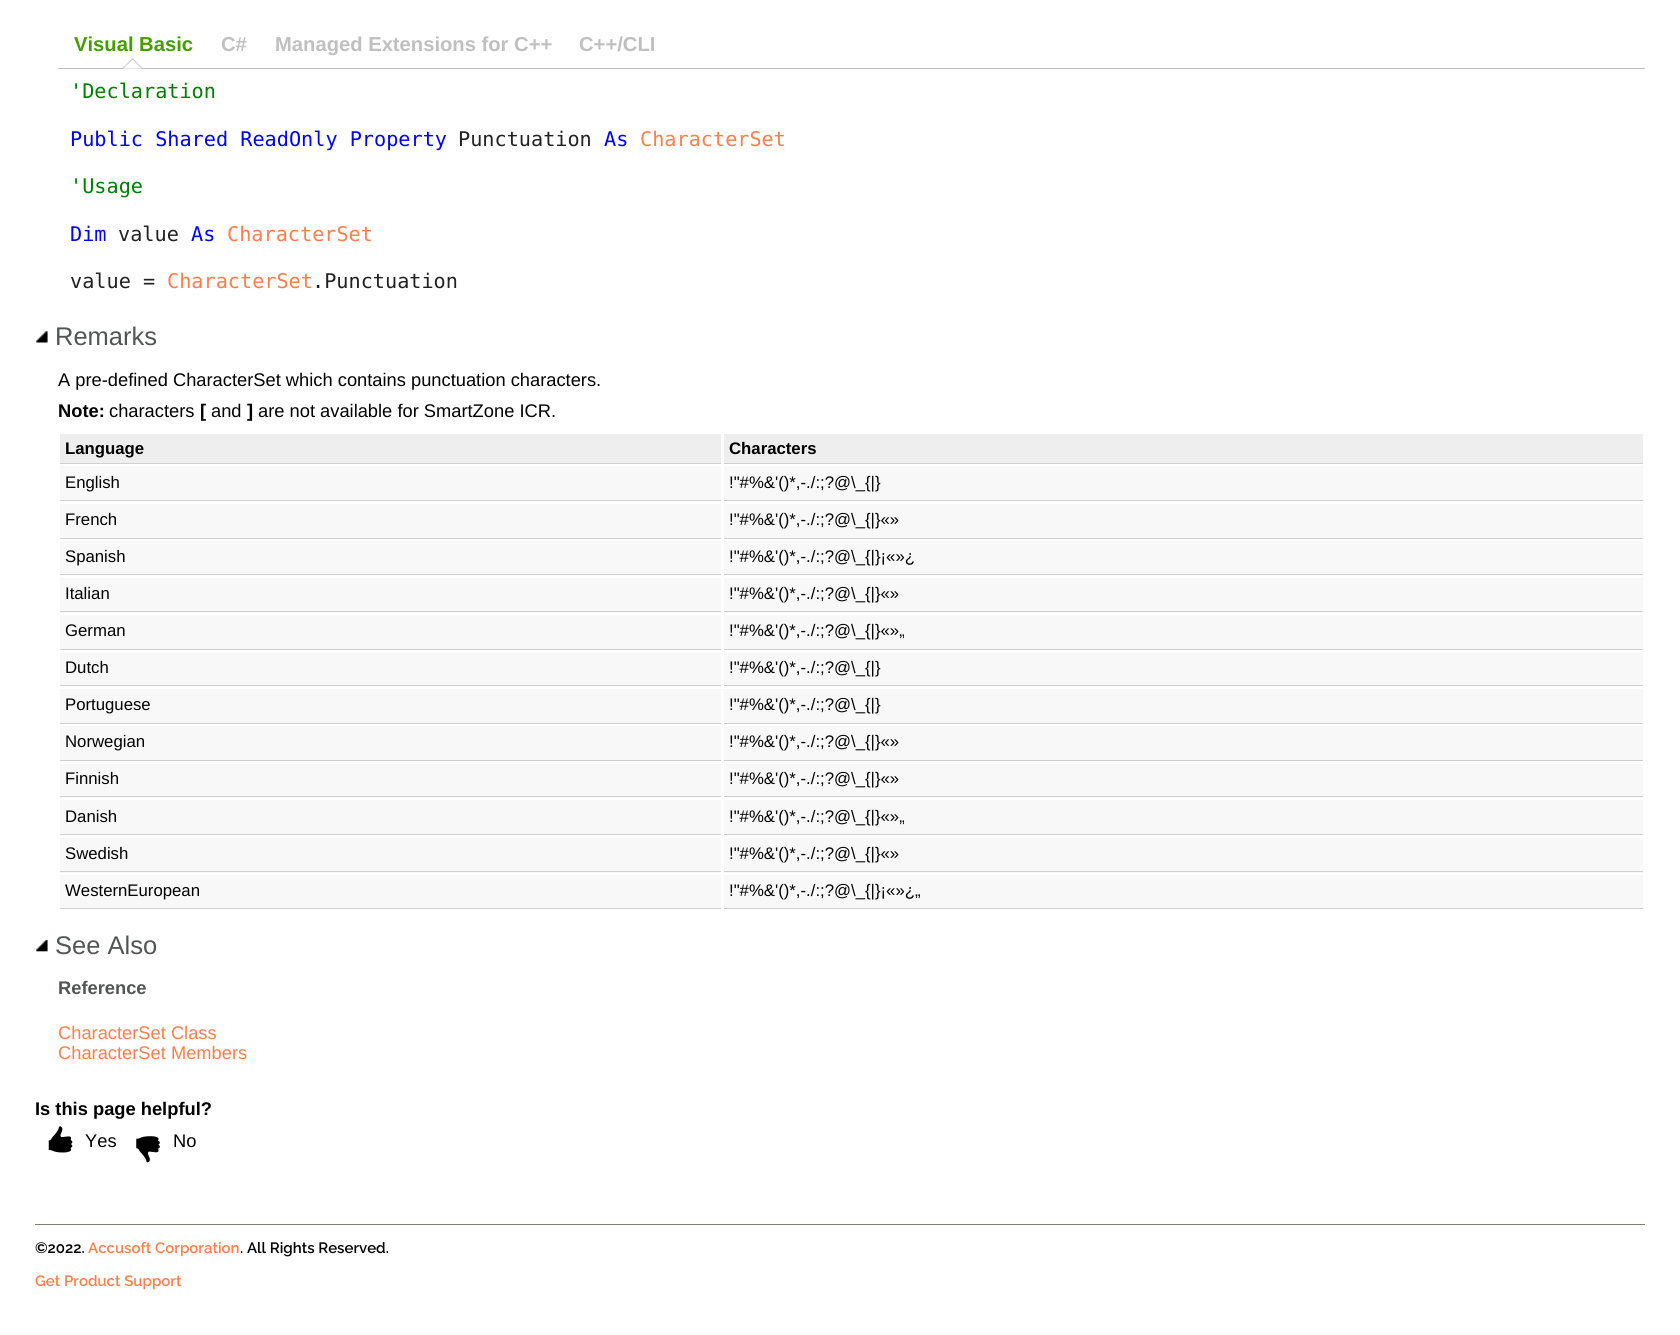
#include <cairo.h>
#include <math.h>
#include <stddef.h>


static void picture(cairo_t *cr, const char *path, double x, double y, double w, double h) {
    cairo_surface_t *image = cairo_image_surface_create_from_png(path);
    cairo_save(cr);
    cairo_set_source_surface(cr, image, x, y);
    cairo_rectangle(cr, x, y, w, h);
    cairo_fill(cr);
    cairo_restore(cr);
    cairo_surface_destroy(image);
}

int main(void) {
    cairo_surface_t *surface = cairo_image_surface_create(CAIRO_FORMAT_RGB24, 1680, 1335);
    cairo_t *cr = cairo_create(surface);
    cairo_font_options_t *options = cairo_font_options_create();
    cairo_font_options_set_hint_metrics(options, CAIRO_HINT_METRICS_OFF);
    cairo_font_options_set_hint_style(options, CAIRO_HINT_STYLE_NONE);
    cairo_set_font_options(cr, options);
    cairo_set_miter_limit(cr, 4);
    cairo_set_source_rgb(cr, 1, 1, 1);
    cairo_paint(cr);
    cairo_set_source_rgb(cr, 0.753, 0.753, 0.753);
    cairo_rectangle(cr, 58, 68, 1587, 1);
    cairo_fill(cr);
    picture(cr, "img1.png", 122, 58, 21, 11);
    cairo_select_font_face(cr, "Liberation Sans", CAIRO_FONT_SLANT_NORMAL, CAIRO_FONT_WEIGHT_BOLD);
    cairo_set_font_size(cr, 20.2);
    cairo_set_source_rgb(cr, 0.271, 0.62, 0);
    cairo_move_to(cr, 74, 51);
    cairo_show_text(cr, "Visual Basic");
    cairo_set_source_rgb(cr, 0.753, 0.753, 0.753);
    cairo_move_to(cr, 221, 51);
    cairo_show_text(cr, "C#");
    cairo_move_to(cr, 275, 51);
    cairo_show_text(cr, "Managed Extensions for C++");
    cairo_move_to(cr, 579, 51);
    cairo_show_text(cr, "C++/CLI");
    cairo_select_font_face(cr, "DejaVu Sans Mono", CAIRO_FONT_SLANT_NORMAL, CAIRO_FONT_WEIGHT_NORMAL);
    cairo_set_source_rgb(cr, 0, 0.502, 0);
    cairo_move_to(cr, 70, 98);
    cairo_show_text(cr, "'Declaration");
    cairo_set_source_rgb(cr, 0, 0, 1);
    cairo_move_to(cr, 70, 146);
    cairo_show_text(cr, "Public Shared ReadOnly Property");
    cairo_set_source_rgb(cr, 0.133, 0.133, 0.133);
    cairo_move_to(cr, 458, 146);
    cairo_show_text(cr, "Punctuation");
    cairo_set_source_rgb(cr, 0, 0, 1);
    cairo_move_to(cr, 604, 146);
    cairo_show_text(cr, "As");
    cairo_set_source_rgb(cr, 1, 0.494, 0.29);
    cairo_move_to(cr, 640, 146);
    cairo_show_text(cr, "CharacterSet");
    cairo_set_source_rgb(cr, 0, 0.502, 0);
    cairo_move_to(cr, 70, 193);
    cairo_show_text(cr, "'Usage");
    cairo_set_source_rgb(cr, 0, 0, 1);
    cairo_move_to(cr, 70, 241);
    cairo_show_text(cr, "Dim");
    cairo_set_source_rgb(cr, 0.133, 0.133, 0.133);
    cairo_move_to(cr, 118, 241);
    cairo_show_text(cr, "value");
    cairo_set_source_rgb(cr, 0, 0, 1);
    cairo_move_to(cr, 191, 241);
    cairo_show_text(cr, "As");
    cairo_set_source_rgb(cr, 1, 0.494, 0.29);
    cairo_move_to(cr, 227, 241);
    cairo_show_text(cr, "CharacterSet");
    cairo_set_source_rgb(cr, 0.133, 0.133, 0.133);
    cairo_move_to(cr, 70, 288);
    cairo_show_text(cr, "value =");
    cairo_set_source_rgb(cr, 1, 0.494, 0.29);
    cairo_move_to(cr, 167, 288);
    cairo_show_text(cr, "CharacterSet");
    cairo_set_source_rgb(cr, 0.133, 0.133, 0.133);
    cairo_move_to(cr, 312, 288);
    cairo_show_text(cr, ".Punctuation");
    picture(cr, "img2.png", 36, 331, 12, 12);
    cairo_select_font_face(cr, "Liberation Sans", CAIRO_FONT_SLANT_NORMAL, CAIRO_FONT_WEIGHT_NORMAL);
    cairo_set_font_size(cr, 25.5);
    cairo_set_source_rgb(cr, 0.318, 0.333, 0.329);
    cairo_move_to(cr, 55, 345);
    cairo_show_text(cr, "Remarks");
    cairo_set_font_size(cr, 18.3);
    cairo_set_source_rgb(cr, 0, 0, 0);
    cairo_move_to(cr, 58, 386);
    cairo_show_text(cr, "A pre-defined CharacterSet which contains punctuation characters.");
    cairo_select_font_face(cr, "Liberation Sans", CAIRO_FONT_SLANT_NORMAL, CAIRO_FONT_WEIGHT_BOLD);
    cairo_move_to(cr, 58, 417);
    cairo_show_text(cr, "Note:");
    cairo_select_font_face(cr, "Liberation Sans", CAIRO_FONT_SLANT_NORMAL, CAIRO_FONT_WEIGHT_NORMAL);
    cairo_move_to(cr, 109, 417);
    cairo_show_text(cr, "characters");
    cairo_select_font_face(cr, "Liberation Sans", CAIRO_FONT_SLANT_NORMAL, CAIRO_FONT_WEIGHT_BOLD);
    cairo_move_to(cr, 200, 417);
    cairo_show_text(cr, "[");
    cairo_select_font_face(cr, "Liberation Sans", CAIRO_FONT_SLANT_NORMAL, CAIRO_FONT_WEIGHT_NORMAL);
    cairo_move_to(cr, 211, 417);
    cairo_show_text(cr, "and");
    cairo_select_font_face(cr, "Liberation Sans", CAIRO_FONT_SLANT_NORMAL, CAIRO_FONT_WEIGHT_BOLD);
    cairo_move_to(cr, 247, 417);
    cairo_show_text(cr, "]");
    cairo_select_font_face(cr, "Liberation Sans", CAIRO_FONT_SLANT_NORMAL, CAIRO_FONT_WEIGHT_NORMAL);
    cairo_move_to(cr, 258, 417);
    cairo_show_text(cr, "are not available for SmartZone ICR.");
    cairo_set_source_rgb(cr, 0.933, 0.933, 0.933);
    cairo_rectangle(cr, 60, 434, 661, 29);
    cairo_fill(cr);
    cairo_set_source_rgb(cr, 0.816, 0.816, 0.816);
    cairo_rectangle(cr, 60, 463, 661, 1);
    cairo_fill(cr);
    cairo_select_font_face(cr, "Liberation Sans", CAIRO_FONT_SLANT_NORMAL, CAIRO_FONT_WEIGHT_BOLD);
    cairo_set_font_size(cr, 16.75);
    cairo_set_source_rgb(cr, 0, 0, 0);
    cairo_move_to(cr, 65, 454);
    cairo_show_text(cr, "Language");
    cairo_set_source_rgb(cr, 0.933, 0.933, 0.933);
    cairo_rectangle(cr, 724, 434, 919, 29);
    cairo_fill(cr);
    cairo_set_source_rgb(cr, 0.816, 0.816, 0.816);
    cairo_rectangle(cr, 724, 463, 919, 1);
    cairo_fill(cr);
    cairo_set_source_rgb(cr, 0, 0, 0);
    cairo_move_to(cr, 729, 454);
    cairo_show_text(cr, "Characters");
    cairo_set_source_rgb(cr, 0.969, 0.969, 0.969);
    cairo_rectangle(cr, 60, 466, 661, 34);
    cairo_fill(cr);
    cairo_set_source_rgb(cr, 0.816, 0.816, 0.816);
    cairo_rectangle(cr, 60, 500, 661, 1);
    cairo_fill(cr);
    cairo_select_font_face(cr, "Liberation Sans", CAIRO_FONT_SLANT_NORMAL, CAIRO_FONT_WEIGHT_NORMAL);
    cairo_set_source_rgb(cr, 0, 0, 0);
    cairo_move_to(cr, 65, 488);
    cairo_show_text(cr, "English");
    cairo_set_source_rgb(cr, 0.969, 0.969, 0.969);
    cairo_rectangle(cr, 724, 466, 919, 34);
    cairo_fill(cr);
    cairo_set_source_rgb(cr, 0.816, 0.816, 0.816);
    cairo_rectangle(cr, 724, 500, 919, 1);
    cairo_fill(cr);
    cairo_set_source_rgb(cr, 0, 0, 0);
    cairo_move_to(cr, 729, 488);
    cairo_show_text(cr, "!\"#%&'()*,-./:;?@\\_{|}");
    cairo_set_source_rgb(cr, 0.969, 0.969, 0.969);
    cairo_rectangle(cr, 60, 504, 661, 34);
    cairo_fill(cr);
    cairo_set_source_rgb(cr, 0.816, 0.816, 0.816);
    cairo_rectangle(cr, 60, 538, 661, 1);
    cairo_fill(cr);
    cairo_set_source_rgb(cr, 0, 0, 0);
    cairo_move_to(cr, 65, 525);
    cairo_show_text(cr, "French");
    cairo_set_source_rgb(cr, 0.969, 0.969, 0.969);
    cairo_rectangle(cr, 724, 504, 919, 34);
    cairo_fill(cr);
    cairo_set_source_rgb(cr, 0.816, 0.816, 0.816);
    cairo_rectangle(cr, 724, 538, 919, 1);
    cairo_fill(cr);
    cairo_set_source_rgb(cr, 0, 0, 0);
    cairo_move_to(cr, 729, 525);
    cairo_show_text(cr, "!\"#%&'()*,-./:;?@\\_{|}«»");
    cairo_set_source_rgb(cr, 0.969, 0.969, 0.969);
    cairo_rectangle(cr, 60, 541, 661, 33);
    cairo_fill(cr);
    cairo_set_source_rgb(cr, 0.816, 0.816, 0.816);
    cairo_rectangle(cr, 60, 574, 661, 1);
    cairo_fill(cr);
    cairo_set_source_rgb(cr, 0, 0, 0);
    cairo_move_to(cr, 65, 562);
    cairo_show_text(cr, "Spanish");
    cairo_set_source_rgb(cr, 0.969, 0.969, 0.969);
    cairo_rectangle(cr, 724, 541, 919, 33);
    cairo_fill(cr);
    cairo_set_source_rgb(cr, 0.816, 0.816, 0.816);
    cairo_rectangle(cr, 724, 574, 919, 1);
    cairo_fill(cr);
    cairo_set_source_rgb(cr, 0, 0, 0);
    cairo_move_to(cr, 729, 562);
    cairo_show_text(cr, "!\"#%&'()*,-./:;?@\\_{|}¡«»¿");
    cairo_set_source_rgb(cr, 0.969, 0.969, 0.969);
    cairo_rectangle(cr, 60, 578, 661, 35);
    cairo_fill(cr);
    cairo_set_source_rgb(cr, 0.816, 0.816, 0.816);
    cairo_rectangle(cr, 60, 611, 661, 1);
    cairo_fill(cr);
    cairo_set_source_rgb(cr, 0, 0, 0);
    cairo_move_to(cr, 65, 599);
    cairo_show_text(cr, "Italian");
    cairo_set_source_rgb(cr, 0.969, 0.969, 0.969);
    cairo_rectangle(cr, 724, 578, 919, 35);
    cairo_fill(cr);
    cairo_set_source_rgb(cr, 0.816, 0.816, 0.816);
    cairo_rectangle(cr, 724, 611, 919, 1);
    cairo_fill(cr);
    cairo_set_source_rgb(cr, 0, 0, 0);
    cairo_move_to(cr, 729, 599);
    cairo_show_text(cr, "!\"#%&'()*,-./:;?@\\_{|}«»");
    cairo_set_source_rgb(cr, 0.969, 0.969, 0.969);
    cairo_rectangle(cr, 60, 615, 661, 34);
    cairo_fill(cr);
    cairo_set_source_rgb(cr, 0.816, 0.816, 0.816);
    cairo_rectangle(cr, 60, 649, 661, 1);
    cairo_fill(cr);
    cairo_set_source_rgb(cr, 0, 0, 0);
    cairo_move_to(cr, 65, 636);
    cairo_show_text(cr, "German");
    cairo_set_source_rgb(cr, 0.969, 0.969, 0.969);
    cairo_rectangle(cr, 724, 615, 919, 34);
    cairo_fill(cr);
    cairo_set_source_rgb(cr, 0.816, 0.816, 0.816);
    cairo_rectangle(cr, 724, 649, 919, 1);
    cairo_fill(cr);
    cairo_set_source_rgb(cr, 0, 0, 0);
    cairo_move_to(cr, 729, 636);
    cairo_show_text(cr, "!\"#%&'()*,-./:;?@\\_{|}«»„");
    cairo_set_source_rgb(cr, 0.969, 0.969, 0.969);
    cairo_rectangle(cr, 60, 653, 661, 32);
    cairo_fill(cr);
    cairo_set_source_rgb(cr, 0.816, 0.816, 0.816);
    cairo_rectangle(cr, 60, 685, 661, 1);
    cairo_fill(cr);
    cairo_set_source_rgb(cr, 0, 0, 0);
    cairo_move_to(cr, 65, 673);
    cairo_show_text(cr, "Dutch");
    cairo_set_source_rgb(cr, 0.969, 0.969, 0.969);
    cairo_rectangle(cr, 724, 653, 919, 32);
    cairo_fill(cr);
    cairo_set_source_rgb(cr, 0.816, 0.816, 0.816);
    cairo_rectangle(cr, 724, 685, 919, 1);
    cairo_fill(cr);
    cairo_set_source_rgb(cr, 0, 0, 0);
    cairo_move_to(cr, 729, 673);
    cairo_show_text(cr, "!\"#%&'()*,-./:;?@\\_{|}");
    cairo_set_source_rgb(cr, 0.969, 0.969, 0.969);
    cairo_rectangle(cr, 60, 689, 661, 34);
    cairo_fill(cr);
    cairo_set_source_rgb(cr, 0.816, 0.816, 0.816);
    cairo_rectangle(cr, 60, 723, 661, 1);
    cairo_fill(cr);
    cairo_set_source_rgb(cr, 0, 0, 0);
    cairo_move_to(cr, 65, 710);
    cairo_show_text(cr, "Portuguese");
    cairo_set_source_rgb(cr, 0.969, 0.969, 0.969);
    cairo_rectangle(cr, 724, 689, 919, 34);
    cairo_fill(cr);
    cairo_set_source_rgb(cr, 0.816, 0.816, 0.816);
    cairo_rectangle(cr, 724, 723, 919, 1);
    cairo_fill(cr);
    cairo_set_source_rgb(cr, 0, 0, 0);
    cairo_move_to(cr, 729, 710);
    cairo_show_text(cr, "!\"#%&'()*,-./:;?@\\_{|}");
    cairo_set_source_rgb(cr, 0.969, 0.969, 0.969);
    cairo_rectangle(cr, 60, 726, 661, 34);
    cairo_fill(cr);
    cairo_set_source_rgb(cr, 0.816, 0.816, 0.816);
    cairo_rectangle(cr, 60, 760, 661, 1);
    cairo_fill(cr);
    cairo_set_source_rgb(cr, 0, 0, 0);
    cairo_move_to(cr, 65, 747);
    cairo_show_text(cr, "Norwegian");
    cairo_set_source_rgb(cr, 0.969, 0.969, 0.969);
    cairo_rectangle(cr, 724, 726, 919, 34);
    cairo_fill(cr);
    cairo_set_source_rgb(cr, 0.816, 0.816, 0.816);
    cairo_rectangle(cr, 724, 760, 919, 1);
    cairo_fill(cr);
    cairo_set_source_rgb(cr, 0, 0, 0);
    cairo_move_to(cr, 729, 747);
    cairo_show_text(cr, "!\"#%&'()*,-./:;?@\\_{|}«»");
    cairo_set_source_rgb(cr, 0.969, 0.969, 0.969);
    cairo_rectangle(cr, 60, 764, 661, 34);
    cairo_fill(cr);
    cairo_set_source_rgb(cr, 0.816, 0.816, 0.816);
    cairo_rectangle(cr, 60, 796, 661, 1);
    cairo_fill(cr);
    cairo_set_source_rgb(cr, 0, 0, 0);
    cairo_move_to(cr, 65, 784);
    cairo_show_text(cr, "Finnish");
    cairo_set_source_rgb(cr, 0.969, 0.969, 0.969);
    cairo_rectangle(cr, 724, 764, 919, 34);
    cairo_fill(cr);
    cairo_set_source_rgb(cr, 0.816, 0.816, 0.816);
    cairo_rectangle(cr, 724, 796, 919, 1);
    cairo_fill(cr);
    cairo_set_source_rgb(cr, 0, 0, 0);
    cairo_move_to(cr, 729, 784);
    cairo_show_text(cr, "!\"#%&'()*,-./:;?@\\_{|}«»");
    cairo_set_source_rgb(cr, 0.969, 0.969, 0.969);
    cairo_rectangle(cr, 60, 800, 661, 34);
    cairo_fill(cr);
    cairo_set_source_rgb(cr, 0.816, 0.816, 0.816);
    cairo_rectangle(cr, 60, 834, 661, 1);
    cairo_fill(cr);
    cairo_set_source_rgb(cr, 0, 0, 0);
    cairo_move_to(cr, 65, 822);
    cairo_show_text(cr, "Danish");
    cairo_set_source_rgb(cr, 0.969, 0.969, 0.969);
    cairo_rectangle(cr, 724, 800, 919, 34);
    cairo_fill(cr);
    cairo_set_source_rgb(cr, 0.816, 0.816, 0.816);
    cairo_rectangle(cr, 724, 834, 919, 1);
    cairo_fill(cr);
    cairo_set_source_rgb(cr, 0, 0, 0);
    cairo_move_to(cr, 729, 822);
    cairo_show_text(cr, "!\"#%&'()*,-./:;?@\\_{|}«»„");
    cairo_set_source_rgb(cr, 0.969, 0.969, 0.969);
    cairo_rectangle(cr, 60, 838, 661, 35);
    cairo_fill(cr);
    cairo_set_source_rgb(cr, 0.816, 0.816, 0.816);
    cairo_rectangle(cr, 60, 871, 661, 1);
    cairo_fill(cr);
    cairo_set_source_rgb(cr, 0, 0, 0);
    cairo_move_to(cr, 65, 859);
    cairo_show_text(cr, "Swedish");
    cairo_set_source_rgb(cr, 0.969, 0.969, 0.969);
    cairo_rectangle(cr, 724, 838, 919, 35);
    cairo_fill(cr);
    cairo_set_source_rgb(cr, 0.816, 0.816, 0.816);
    cairo_rectangle(cr, 724, 871, 919, 1);
    cairo_fill(cr);
    cairo_set_source_rgb(cr, 0, 0, 0);
    cairo_move_to(cr, 729, 859);
    cairo_show_text(cr, "!\"#%&'()*,-./:;?@\\_{|}«»");
    cairo_set_source_rgb(cr, 0.969, 0.969, 0.969);
    cairo_rectangle(cr, 60, 875, 661, 33);
    cairo_fill(cr);
    cairo_set_source_rgb(cr, 0.816, 0.816, 0.816);
    cairo_rectangle(cr, 60, 908, 661, 1);
    cairo_fill(cr);
    cairo_set_source_rgb(cr, 0, 0, 0);
    cairo_move_to(cr, 65, 896);
    cairo_show_text(cr, "WesternEuropean");
    cairo_set_source_rgb(cr, 0.969, 0.969, 0.969);
    cairo_rectangle(cr, 724, 875, 919, 33);
    cairo_fill(cr);
    cairo_set_source_rgb(cr, 0.816, 0.816, 0.816);
    cairo_rectangle(cr, 724, 908, 919, 1);
    cairo_fill(cr);
    cairo_set_source_rgb(cr, 0, 0, 0);
    cairo_move_to(cr, 729, 896);
    cairo_show_text(cr, "!\"#%&'()*,-./:;?@\\_{|}¡«»¿„");
    picture(cr, "img3.png", 36, 939, 12, 13);
    cairo_set_font_size(cr, 25.5);
    cairo_set_source_rgb(cr, 0.318, 0.333, 0.329);
    cairo_move_to(cr, 55, 954);
    cairo_show_text(cr, "See Also");
    cairo_select_font_face(cr, "Liberation Sans", CAIRO_FONT_SLANT_NORMAL, CAIRO_FONT_WEIGHT_BOLD);
    cairo_set_font_size(cr, 18.3);
    cairo_move_to(cr, 58, 994);
    cairo_show_text(cr, "Reference");
    cairo_select_font_face(cr, "Liberation Sans", CAIRO_FONT_SLANT_NORMAL, CAIRO_FONT_WEIGHT_NORMAL);
    cairo_set_source_rgb(cr, 1, 0.494, 0.29);
    cairo_move_to(cr, 58, 1039);
    cairo_show_text(cr, "CharacterSet Class");
    cairo_move_to(cr, 58, 1059);
    cairo_show_text(cr, "CharacterSet Members");
    cairo_select_font_face(cr, "Liberation Sans", CAIRO_FONT_SLANT_NORMAL, CAIRO_FONT_WEIGHT_BOLD);
    cairo_set_source_rgb(cr, 0, 0, 0);
    cairo_move_to(cr, 35, 1115);
    cairo_show_text(cr, "Is this page helpful?");
    picture(cr, "img4.png", 48, 1126, 25, 27);
    cairo_select_font_face(cr, "Liberation Sans", CAIRO_FONT_SLANT_NORMAL, CAIRO_FONT_WEIGHT_NORMAL);
    cairo_move_to(cr, 85, 1147);
    cairo_show_text(cr, "Yes");
    picture(cr, "img5.png", 136, 1136, 24, 27);
    cairo_move_to(cr, 173, 1147);
    cairo_show_text(cr, "No");
    cairo_set_source_rgb(cr, 0.502, 0.498, 0.459);
    cairo_rectangle(cr, 35, 1224, 1610, 1);
    cairo_fill(cr);
    cairo_select_font_face(cr, "Raleway SemiBold", CAIRO_FONT_SLANT_NORMAL, CAIRO_FONT_WEIGHT_NORMAL);
    cairo_set_font_size(cr, 15);
    cairo_set_source_rgb(cr, 0, 0, 0);
    cairo_move_to(cr, 35, 1253);
    cairo_show_text(cr, "©2022.");
    cairo_set_source_rgb(cr, 1, 0.494, 0.29);
    cairo_move_to(cr, 88, 1253);
    cairo_show_text(cr, "Accusoft Corporation");
    cairo_set_source_rgb(cr, 0, 0, 0);
    cairo_move_to(cr, 240, 1253);
    cairo_show_text(cr, ". All Rights Reserved.");
    cairo_set_source_rgb(cr, 1, 0.494, 0.29);
    cairo_move_to(cr, 35, 1286);
    cairo_show_text(cr, "Get Product Support");
    cairo_surface_write_to_png(surface, "page.png");
    cairo_font_options_destroy(options);
    cairo_destroy(cr);
    cairo_surface_destroy(surface);
    return 0;
}
